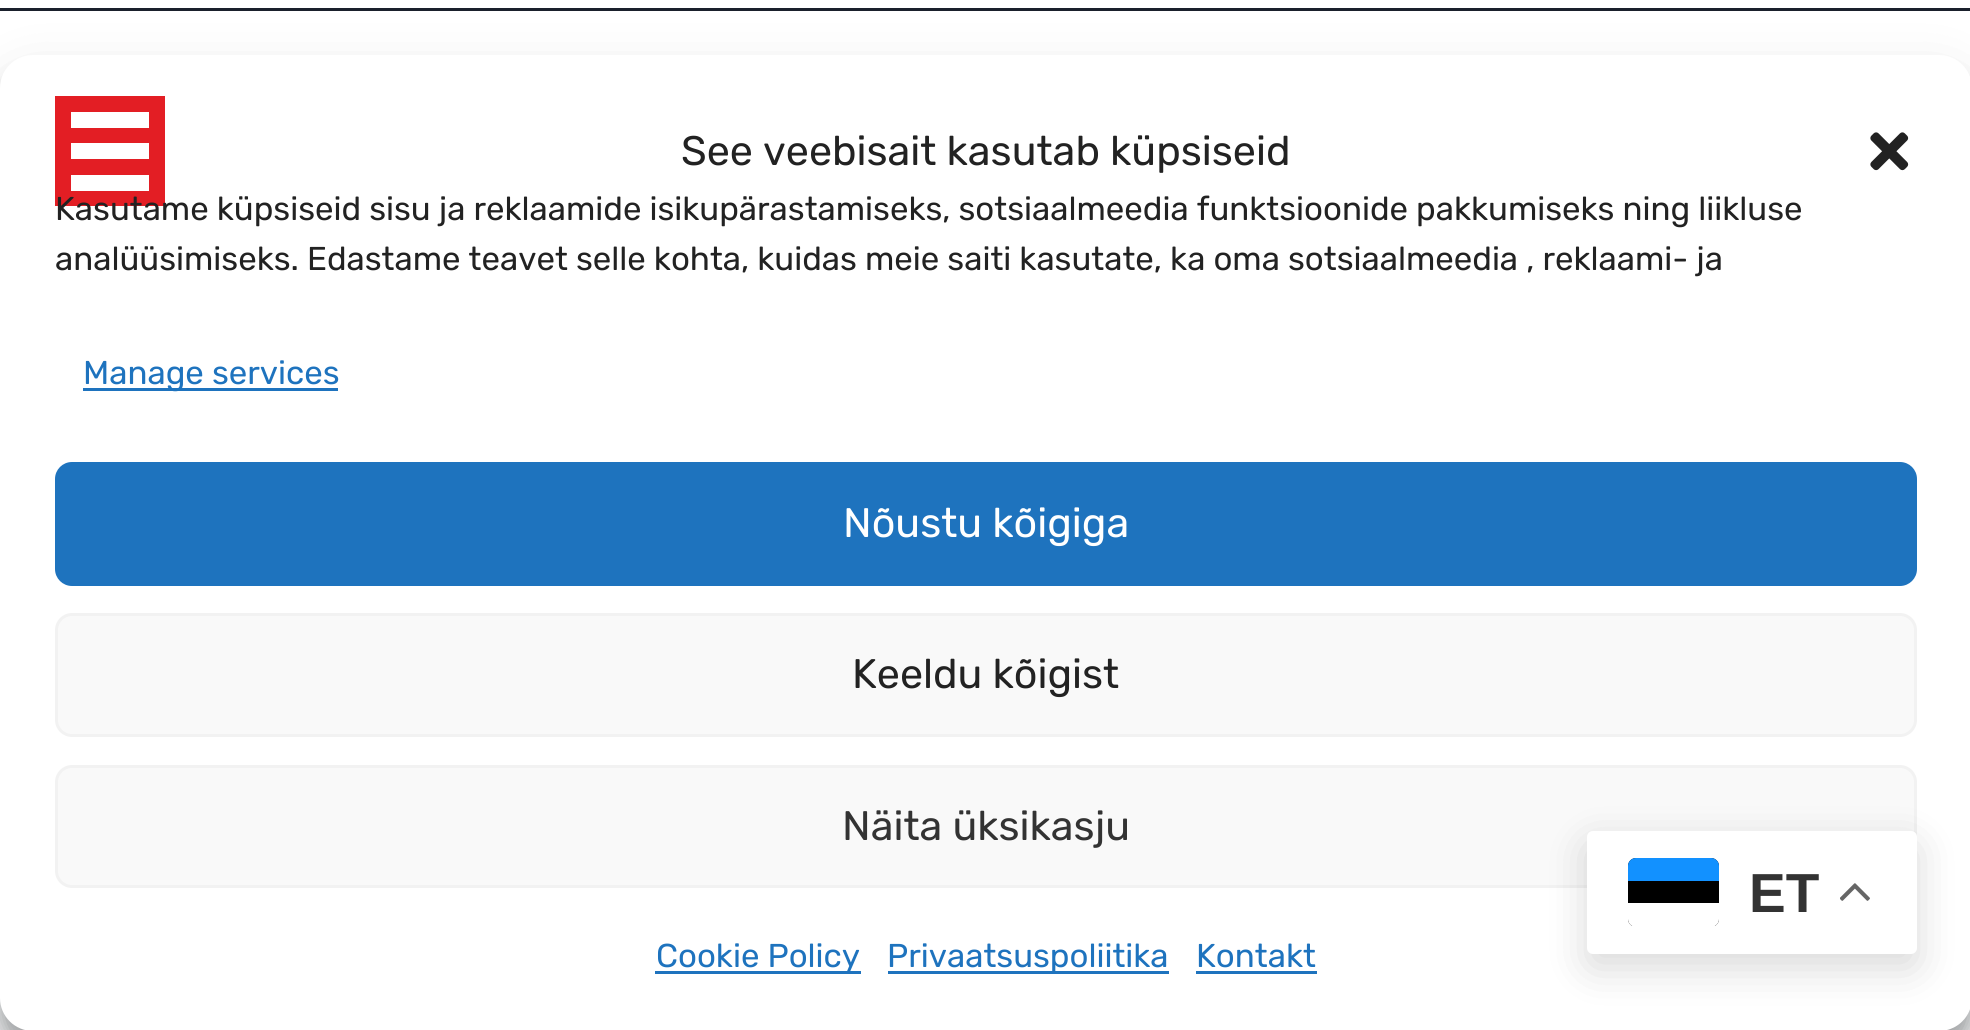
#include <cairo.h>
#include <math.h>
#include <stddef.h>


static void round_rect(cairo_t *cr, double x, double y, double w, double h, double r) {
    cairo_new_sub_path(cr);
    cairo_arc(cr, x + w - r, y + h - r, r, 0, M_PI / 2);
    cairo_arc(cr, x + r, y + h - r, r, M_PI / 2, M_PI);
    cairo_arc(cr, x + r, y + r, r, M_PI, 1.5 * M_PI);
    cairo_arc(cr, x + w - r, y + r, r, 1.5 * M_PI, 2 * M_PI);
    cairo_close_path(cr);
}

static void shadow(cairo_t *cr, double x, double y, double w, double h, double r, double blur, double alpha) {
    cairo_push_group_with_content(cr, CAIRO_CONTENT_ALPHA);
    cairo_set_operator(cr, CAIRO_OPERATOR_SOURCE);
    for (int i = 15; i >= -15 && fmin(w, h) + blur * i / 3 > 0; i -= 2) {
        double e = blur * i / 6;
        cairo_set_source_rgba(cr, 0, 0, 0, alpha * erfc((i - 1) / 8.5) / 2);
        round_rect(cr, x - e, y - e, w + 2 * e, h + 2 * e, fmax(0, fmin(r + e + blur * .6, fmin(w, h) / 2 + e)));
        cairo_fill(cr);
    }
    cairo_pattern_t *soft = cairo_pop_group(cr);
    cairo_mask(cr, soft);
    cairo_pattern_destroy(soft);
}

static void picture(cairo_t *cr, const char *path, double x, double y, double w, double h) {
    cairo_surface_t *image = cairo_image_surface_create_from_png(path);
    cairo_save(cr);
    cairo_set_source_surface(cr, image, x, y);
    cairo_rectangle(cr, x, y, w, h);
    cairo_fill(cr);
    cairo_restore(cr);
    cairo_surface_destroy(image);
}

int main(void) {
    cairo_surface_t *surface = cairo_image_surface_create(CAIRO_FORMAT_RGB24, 1970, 1030);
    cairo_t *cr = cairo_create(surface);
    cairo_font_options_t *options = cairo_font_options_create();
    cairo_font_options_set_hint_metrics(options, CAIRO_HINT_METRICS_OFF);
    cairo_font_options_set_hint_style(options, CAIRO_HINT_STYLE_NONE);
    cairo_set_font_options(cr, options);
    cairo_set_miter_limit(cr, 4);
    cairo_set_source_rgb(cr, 1, 1, 1);
    cairo_paint(cr);
    cairo_set_source_rgb(cr, 0.102, 0.125, 0.173);
    cairo_rectangle(cr, 0, 8, 1970, 3);
    cairo_fill(cr);
    cairo_set_source_rgb(cr, 0.969, 0.98, 0.988);
    cairo_rectangle(cr, 0, 998, 1970, 32);
    cairo_fill(cr);
    cairo_set_source_rgb(cr, 0, 0, 0);
    shadow(cr, 0, 72, 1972, 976, 33, 8, 0.23);
    shadow(cr, 0, 83, 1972, 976, 33, 27.5, 0.19);
    cairo_set_source_rgb(cr, 1, 1, 1);
    round_rect(cr, 0, 55, 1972, 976, 33);
    cairo_fill(cr);
    cairo_set_source_rgb(cr, 0.89, 0.118, 0.141);
    cairo_set_fill_rule(cr, CAIRO_FILL_RULE_EVEN_ODD);
    cairo_new_path(cr);
    cairo_move_to(cr, 55, 96);
    cairo_line_to(cr, 71, 112);
    cairo_line_to(cr, 149, 112);
    cairo_line_to(cr, 149, 128);
    cairo_line_to(cr, 71, 128);
    cairo_line_to(cr, 71, 143);
    cairo_line_to(cr, 149, 143);
    cairo_line_to(cr, 149, 159);
    cairo_line_to(cr, 71, 159);
    cairo_line_to(cr, 71, 175);
    cairo_line_to(cr, 149, 175);
    cairo_line_to(cr, 149, 191);
    cairo_line_to(cr, 71, 191);
    cairo_line_to(cr, 71, 112);
    cairo_line_to(cr, 55, 96);
    cairo_line_to(cr, 55, 206);
    cairo_line_to(cr, 165, 206);
    cairo_line_to(cr, 165, 96);
    cairo_close_path(cr);
    cairo_fill(cr);
    cairo_select_font_face(cr, "Rubik", CAIRO_FONT_SLANT_NORMAL, CAIRO_FONT_WEIGHT_NORMAL);
    cairo_set_font_size(cr, 41.25);
    cairo_set_source_rgb(cr, 0.133, 0.133, 0.133);
    cairo_move_to(cr, 681, 165);
    cairo_show_text(cr, "See veebisait kasutab küpsiseid");
    picture(cr, "img1.png", 1870, 132, 39, 39);
    cairo_set_font_size(cr, 33);
    cairo_move_to(cr, 55, 220);
    cairo_show_text(cr, "Kasutame küpsiseid sisu ja reklaamide isikupärastamiseks, sotsiaalmeedia funktsioonide pakkumiseks ning liikluse");
    cairo_move_to(cr, 55, 270);
    cairo_show_text(cr, "analüüsimiseks. Edastame teavet selle kohta, kuidas meie saiti kasutate, ka oma sotsiaalmeedia , reklaami- ja");
    cairo_set_source_rgb(cr, 0.118, 0.451, 0.745);
    cairo_rectangle(cr, 83, 388, 255, 3);
    cairo_fill(cr);
    cairo_move_to(cr, 83, 384);
    cairo_show_text(cr, "Manage services");
    round_rect(cr, 56.5, 463.5, 1859, 121, 15.5);
    cairo_fill_preserve(cr);
    cairo_set_line_width(cr, 3);
    cairo_stroke(cr);
    cairo_set_font_size(cr, 41.25);
    cairo_set_source_rgb(cr, 1, 1, 1);
    cairo_move_to(cr, 843, 537);
    cairo_show_text(cr, "Nõustu kõigiga");
    cairo_set_source_rgb(cr, 0.976, 0.976, 0.976);
    round_rect(cr, 56.5, 614.5, 1859, 121, 15.5);
    cairo_fill_preserve(cr);
    cairo_set_source_rgb(cr, 0.949, 0.949, 0.949);
    cairo_stroke(cr);
    cairo_set_source_rgb(cr, 0.133, 0.133, 0.133);
    cairo_move_to(cr, 852, 688);
    cairo_show_text(cr, "Keeldu kõigist");
    cairo_set_source_rgb(cr, 0.976, 0.976, 0.976);
    round_rect(cr, 56.5, 766.5, 1859, 120, 15.5);
    cairo_fill_preserve(cr);
    cairo_set_source_rgb(cr, 0.949, 0.949, 0.949);
    cairo_stroke(cr);
    cairo_set_source_rgb(cr, 0.2, 0.2, 0.2);
    cairo_move_to(cr, 842, 840);
    cairo_show_text(cr, "Näita üksikasju");
    cairo_set_source_rgb(cr, 0.118, 0.451, 0.745);
    cairo_rectangle(cr, 655, 971, 206, 3);
    cairo_fill(cr);
    cairo_set_font_size(cr, 33);
    cairo_move_to(cr, 656, 967);
    cairo_show_text(cr, "Cookie Policy");
    cairo_rectangle(cr, 888, 971, 281, 3);
    cairo_fill(cr);
    cairo_move_to(cr, 887, 967);
    cairo_show_text(cr, "Privaatsuspoliitika");
    cairo_move_to(cr, 1196, 967);
    cairo_show_text(cr, "Kontakt");
    cairo_rectangle(cr, 1196, 971, 121, 3);
    cairo_fill(cr);
    cairo_set_source_rgb(cr, 0, 0, 0);
    shadow(cr, 1587, 844, 330, 124, 6, 20.5, 0.15);
    cairo_set_source_rgb(cr, 1, 1, 1);
    round_rect(cr, 1587, 831, 330, 123, 6);
    cairo_fill(cr);
    cairo_save(cr);
    cairo_set_fill_rule(cr, CAIRO_FILL_RULE_WINDING);
    round_rect(cr, 1628, 858, 91, 69, 8);
    cairo_clip(cr);
    cairo_set_source_rgb(cr, 0, 0, 0);
    cairo_new_path(cr);
    cairo_move_to(cr, 1636, 858);
    cairo_line_to(cr, 1711, 858);
    cairo_curve_to(cr, 1715.5, 858, 1719, 861.5, 1719, 866);
    cairo_line_to(cr, 1719, 926);
    cairo_line_to(cr, 1628, 926);
    cairo_line_to(cr, 1628, 866);
    cairo_curve_to(cr, 1628, 861.5, 1631.5, 858, 1636, 858);
    cairo_close_path(cr);
    cairo_fill(cr);
    cairo_set_source_rgb(cr, 1, 1, 1);
    cairo_rectangle(cr, 1628, 903, 91, 23);
    cairo_fill(cr);
    cairo_restore(cr);
    cairo_set_source_rgb(cr, 0.071, 0.569, 1);
    cairo_new_path(cr);
    cairo_move_to(cr, 1636, 858);
    cairo_line_to(cr, 1711, 858);
    cairo_curve_to(cr, 1715.5, 858, 1719, 861.5, 1719, 866);
    cairo_line_to(cr, 1719, 881);
    cairo_line_to(cr, 1628, 881);
    cairo_line_to(cr, 1628, 866);
    cairo_curve_to(cr, 1628, 861.5, 1631.5, 858, 1636, 858);
    cairo_close_path(cr);
    cairo_fill(cr);
    cairo_select_font_face(cr, "Liberation Sans", CAIRO_FONT_SLANT_NORMAL, CAIRO_FONT_WEIGHT_BOLD);
    cairo_set_font_size(cr, 55);
    cairo_set_source_rgb(cr, 0.2, 0.2, 0.2);
    cairo_move_to(cr, 1749, 912);
    cairo_show_text(cr, "ET");
    picture(cr, "img2.png", 1840, 883, 30, 18);
    cairo_surface_write_to_png(surface, "page.png");
    cairo_font_options_destroy(options);
    cairo_destroy(cr);
    cairo_surface_destroy(surface);
    return 0;
}
